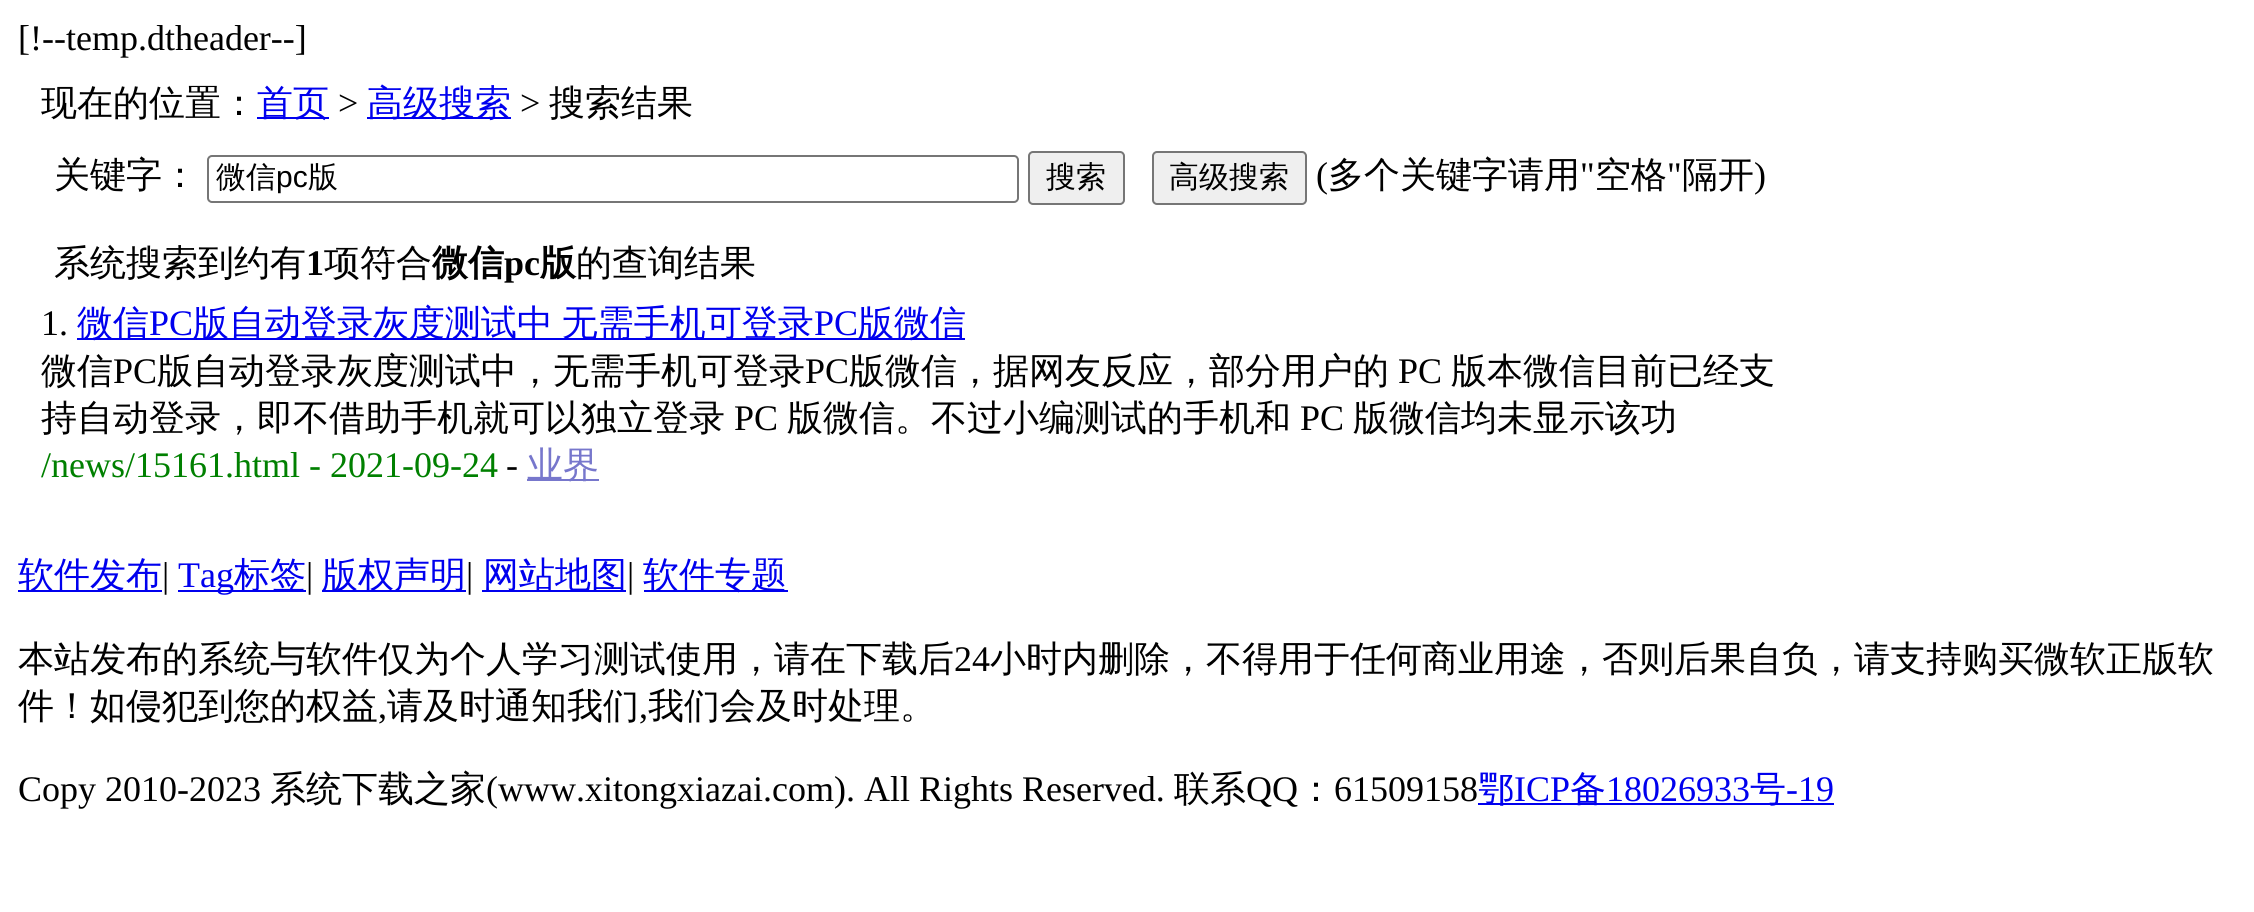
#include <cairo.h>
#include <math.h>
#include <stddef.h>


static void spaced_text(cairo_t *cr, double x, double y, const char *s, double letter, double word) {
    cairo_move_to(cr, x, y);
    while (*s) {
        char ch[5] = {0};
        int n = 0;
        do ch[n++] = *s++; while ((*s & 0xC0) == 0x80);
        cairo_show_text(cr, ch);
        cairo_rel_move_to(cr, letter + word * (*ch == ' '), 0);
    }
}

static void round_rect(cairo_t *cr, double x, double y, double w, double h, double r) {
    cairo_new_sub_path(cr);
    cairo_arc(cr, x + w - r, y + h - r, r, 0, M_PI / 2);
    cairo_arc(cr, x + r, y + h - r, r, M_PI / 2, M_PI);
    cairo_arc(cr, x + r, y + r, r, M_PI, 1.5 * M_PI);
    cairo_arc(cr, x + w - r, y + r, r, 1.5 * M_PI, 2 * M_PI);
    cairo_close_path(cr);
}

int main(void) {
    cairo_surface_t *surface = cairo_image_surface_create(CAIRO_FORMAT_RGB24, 2254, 912);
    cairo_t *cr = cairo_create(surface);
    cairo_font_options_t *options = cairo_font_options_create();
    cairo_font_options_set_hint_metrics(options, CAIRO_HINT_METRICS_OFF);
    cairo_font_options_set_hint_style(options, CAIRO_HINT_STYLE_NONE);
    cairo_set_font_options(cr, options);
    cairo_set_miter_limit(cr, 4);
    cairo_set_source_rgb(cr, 1, 1, 1);
    cairo_paint(cr);
    cairo_select_font_face(cr, "Liberation Serif", CAIRO_FONT_SLANT_NORMAL, CAIRO_FONT_WEIGHT_NORMAL);
    cairo_set_font_size(cr, 36);
    cairo_set_source_rgb(cr, 0, 0, 0);
    cairo_move_to(cr, 18, 50);
    cairo_show_text(cr, "[!--temp.dtheader--]");
    cairo_select_font_face(cr, "WenQuanYi Zen Hei Medium", CAIRO_FONT_SLANT_NORMAL, CAIRO_FONT_WEIGHT_NORMAL);
    cairo_move_to(cr, 41, 115);
    cairo_show_text(cr, "现在的位置：");
    cairo_set_source_rgb(cr, 0, 0, 0.933);
    cairo_rectangle(cr, 257, 117, 72, 2);
    cairo_fill(cr);
    cairo_move_to(cr, 257, 115);
    cairo_show_text(cr, "首页");
    cairo_select_font_face(cr, "Liberation Serif", CAIRO_FONT_SLANT_NORMAL, CAIRO_FONT_WEIGHT_NORMAL);
    cairo_set_source_rgb(cr, 0, 0, 0);
    cairo_move_to(cr, 338, 115);
    cairo_show_text(cr, ">");
    cairo_set_source_rgb(cr, 0, 0, 0.933);
    cairo_rectangle(cr, 367, 117, 144, 2);
    cairo_fill(cr);
    cairo_select_font_face(cr, "WenQuanYi Zen Hei Medium", CAIRO_FONT_SLANT_NORMAL, CAIRO_FONT_WEIGHT_NORMAL);
    cairo_move_to(cr, 367, 115);
    cairo_show_text(cr, "高级搜索");
    cairo_select_font_face(cr, "Liberation Serif", CAIRO_FONT_SLANT_NORMAL, CAIRO_FONT_WEIGHT_NORMAL);
    cairo_set_source_rgb(cr, 0, 0, 0);
    cairo_move_to(cr, 520, 115);
    cairo_show_text(cr, ">");
    cairo_select_font_face(cr, "WenQuanYi Zen Hei Medium", CAIRO_FONT_SLANT_NORMAL, CAIRO_FONT_WEIGHT_NORMAL);
    cairo_move_to(cr, 549, 115);
    cairo_show_text(cr, "搜索结果");
    cairo_move_to(cr, 54, 187);
    cairo_show_text(cr, "关键字：");
    round_rect(cr, 208, 156, 810, 46, 4);
    cairo_set_source_rgb(cr, 0.463, 0.463, 0.463);
    cairo_stroke(cr);
    cairo_set_font_size(cr, 30);
    cairo_set_source_rgb(cr, 0, 0, 0);
    cairo_move_to(cr, 216, 187);
    cairo_show_text(cr, "微信");
    cairo_select_font_face(cr, "Liberation Sans", CAIRO_FONT_SLANT_NORMAL, CAIRO_FONT_WEIGHT_NORMAL);
    cairo_move_to(cr, 276, 187);
    cairo_show_text(cr, "pc");
    cairo_select_font_face(cr, "WenQuanYi Zen Hei Medium", CAIRO_FONT_SLANT_NORMAL, CAIRO_FONT_WEIGHT_NORMAL);
    cairo_move_to(cr, 308, 187);
    cairo_show_text(cr, "版");
    cairo_set_source_rgb(cr, 0.937, 0.937, 0.937);
    round_rect(cr, 1029, 152, 95, 52, 4);
    cairo_fill_preserve(cr);
    cairo_set_source_rgb(cr, 0.463, 0.463, 0.463);
    cairo_stroke(cr);
    cairo_set_source_rgb(cr, 0, 0, 0);
    cairo_move_to(cr, 1046, 187);
    cairo_show_text(cr, "搜索");
    cairo_set_source_rgb(cr, 0.937, 0.937, 0.937);
    round_rect(cr, 1153, 152, 153, 52, 4);
    cairo_fill_preserve(cr);
    cairo_set_source_rgb(cr, 0.463, 0.463, 0.463);
    cairo_stroke(cr);
    cairo_set_source_rgb(cr, 0, 0, 0);
    cairo_move_to(cr, 1169, 187);
    cairo_show_text(cr, "高级搜索");
    cairo_select_font_face(cr, "Liberation Serif", CAIRO_FONT_SLANT_NORMAL, CAIRO_FONT_WEIGHT_NORMAL);
    cairo_set_font_size(cr, 36);
    cairo_move_to(cr, 1316, 187);
    cairo_show_text(cr, "(");
    cairo_select_font_face(cr, "WenQuanYi Zen Hei Medium", CAIRO_FONT_SLANT_NORMAL, CAIRO_FONT_WEIGHT_NORMAL);
    cairo_move_to(cr, 1328, 187);
    cairo_show_text(cr, "多个关键字请用");
    cairo_select_font_face(cr, "Liberation Serif", CAIRO_FONT_SLANT_NORMAL, CAIRO_FONT_WEIGHT_NORMAL);
    cairo_move_to(cr, 1580, 187);
    cairo_show_text(cr, "\"");
    cairo_select_font_face(cr, "WenQuanYi Zen Hei Medium", CAIRO_FONT_SLANT_NORMAL, CAIRO_FONT_WEIGHT_NORMAL);
    cairo_move_to(cr, 1595, 187);
    cairo_show_text(cr, "空格");
    cairo_select_font_face(cr, "Liberation Serif", CAIRO_FONT_SLANT_NORMAL, CAIRO_FONT_WEIGHT_NORMAL);
    cairo_move_to(cr, 1667, 187);
    cairo_show_text(cr, "\"");
    cairo_select_font_face(cr, "WenQuanYi Zen Hei Medium", CAIRO_FONT_SLANT_NORMAL, CAIRO_FONT_WEIGHT_NORMAL);
    cairo_move_to(cr, 1682, 187);
    cairo_show_text(cr, "隔开");
    cairo_select_font_face(cr, "Liberation Serif", CAIRO_FONT_SLANT_NORMAL, CAIRO_FONT_WEIGHT_NORMAL);
    cairo_move_to(cr, 1754, 187);
    cairo_show_text(cr, ")");
    cairo_select_font_face(cr, "WenQuanYi Zen Hei Medium", CAIRO_FONT_SLANT_NORMAL, CAIRO_FONT_WEIGHT_NORMAL);
    cairo_move_to(cr, 54, 275);
    cairo_show_text(cr, "系统搜索到约有");
    cairo_select_font_face(cr, "Liberation Serif", CAIRO_FONT_SLANT_NORMAL, CAIRO_FONT_WEIGHT_BOLD);
    cairo_move_to(cr, 306, 275);
    cairo_show_text(cr, "1");
    cairo_select_font_face(cr, "WenQuanYi Zen Hei Medium", CAIRO_FONT_SLANT_NORMAL, CAIRO_FONT_WEIGHT_NORMAL);
    cairo_move_to(cr, 324, 275);
    cairo_show_text(cr, "项符合");
    cairo_select_font_face(cr, "WenQuanYi Zen Hei", CAIRO_FONT_SLANT_NORMAL, CAIRO_FONT_WEIGHT_BOLD);
    cairo_move_to(cr, 432, 275);
    cairo_show_text(cr, "微信");
    cairo_select_font_face(cr, "Liberation Serif", CAIRO_FONT_SLANT_NORMAL, CAIRO_FONT_WEIGHT_BOLD);
    cairo_move_to(cr, 504, 275);
    cairo_show_text(cr, "pc");
    cairo_select_font_face(cr, "WenQuanYi Zen Hei", CAIRO_FONT_SLANT_NORMAL, CAIRO_FONT_WEIGHT_BOLD);
    cairo_move_to(cr, 540, 275);
    cairo_show_text(cr, "版");
    cairo_select_font_face(cr, "WenQuanYi Zen Hei Medium", CAIRO_FONT_SLANT_NORMAL, CAIRO_FONT_WEIGHT_NORMAL);
    cairo_move_to(cr, 576, 275);
    cairo_show_text(cr, "的查询结果");
    cairo_select_font_face(cr, "Liberation Serif", CAIRO_FONT_SLANT_NORMAL, CAIRO_FONT_WEIGHT_NORMAL);
    cairo_move_to(cr, 41, 335);
    cairo_show_text(cr, "1.");
    cairo_set_source_rgb(cr, 0, 0, 0.933);
    cairo_rectangle(cr, 77, 338, 888, 2);
    cairo_fill(cr);
    cairo_select_font_face(cr, "WenQuanYi Zen Hei Medium", CAIRO_FONT_SLANT_NORMAL, CAIRO_FONT_WEIGHT_NORMAL);
    cairo_move_to(cr, 77, 335);
    cairo_show_text(cr, "微信");
    cairo_select_font_face(cr, "Liberation Serif", CAIRO_FONT_SLANT_NORMAL, CAIRO_FONT_WEIGHT_NORMAL);
    cairo_move_to(cr, 149, 335);
    cairo_show_text(cr, "PC");
    cairo_select_font_face(cr, "WenQuanYi Zen Hei Medium", CAIRO_FONT_SLANT_NORMAL, CAIRO_FONT_WEIGHT_NORMAL);
    spaced_text(cr, 193, 335, "版自动登录灰度测试中 无需手机可登录", 0, -2);
    cairo_select_font_face(cr, "Liberation Serif", CAIRO_FONT_SLANT_NORMAL, CAIRO_FONT_WEIGHT_NORMAL);
    cairo_move_to(cr, 814, 335);
    cairo_show_text(cr, "PC");
    cairo_select_font_face(cr, "WenQuanYi Zen Hei Medium", CAIRO_FONT_SLANT_NORMAL, CAIRO_FONT_WEIGHT_NORMAL);
    cairo_move_to(cr, 858, 335);
    cairo_show_text(cr, "版微信");
    cairo_set_source_rgb(cr, 0, 0, 0);
    cairo_move_to(cr, 41, 383);
    cairo_show_text(cr, "微信");
    cairo_select_font_face(cr, "Liberation Serif", CAIRO_FONT_SLANT_NORMAL, CAIRO_FONT_WEIGHT_NORMAL);
    cairo_move_to(cr, 113, 383);
    cairo_show_text(cr, "PC");
    cairo_select_font_face(cr, "WenQuanYi Zen Hei Medium", CAIRO_FONT_SLANT_NORMAL, CAIRO_FONT_WEIGHT_NORMAL);
    cairo_move_to(cr, 157, 383);
    cairo_show_text(cr, "版自动登录灰度测试中，无需手机可登录");
    cairo_select_font_face(cr, "Liberation Serif", CAIRO_FONT_SLANT_NORMAL, CAIRO_FONT_WEIGHT_NORMAL);
    cairo_move_to(cr, 805, 383);
    cairo_show_text(cr, "PC");
    cairo_select_font_face(cr, "WenQuanYi Zen Hei Medium", CAIRO_FONT_SLANT_NORMAL, CAIRO_FONT_WEIGHT_NORMAL);
    cairo_move_to(cr, 849, 383);
    cairo_show_text(cr, "版微信，据网友反应，部分用户的");
    cairo_select_font_face(cr, "Liberation Serif", CAIRO_FONT_SLANT_NORMAL, CAIRO_FONT_WEIGHT_NORMAL);
    cairo_move_to(cr, 1398, 383);
    cairo_show_text(cr, "PC");
    cairo_select_font_face(cr, "WenQuanYi Zen Hei Medium", CAIRO_FONT_SLANT_NORMAL, CAIRO_FONT_WEIGHT_NORMAL);
    cairo_move_to(cr, 1451, 383);
    cairo_show_text(cr, "版本微信目前已经支");
    cairo_move_to(cr, 41, 430);
    cairo_show_text(cr, "持自动登录，即不借助手机就可以独立登录");
    cairo_select_font_face(cr, "Liberation Serif", CAIRO_FONT_SLANT_NORMAL, CAIRO_FONT_WEIGHT_NORMAL);
    cairo_move_to(cr, 734, 430);
    cairo_show_text(cr, "PC");
    cairo_select_font_face(cr, "WenQuanYi Zen Hei Medium", CAIRO_FONT_SLANT_NORMAL, CAIRO_FONT_WEIGHT_NORMAL);
    cairo_move_to(cr, 787, 430);
    cairo_show_text(cr, "版微信。不过小编测试的手机和");
    cairo_select_font_face(cr, "Liberation Serif", CAIRO_FONT_SLANT_NORMAL, CAIRO_FONT_WEIGHT_NORMAL);
    cairo_move_to(cr, 1300, 430);
    cairo_show_text(cr, "PC");
    cairo_select_font_face(cr, "WenQuanYi Zen Hei Medium", CAIRO_FONT_SLANT_NORMAL, CAIRO_FONT_WEIGHT_NORMAL);
    cairo_move_to(cr, 1353, 430);
    cairo_show_text(cr, "版微信均未显示该功");
    cairo_select_font_face(cr, "Liberation Serif", CAIRO_FONT_SLANT_NORMAL, CAIRO_FONT_WEIGHT_NORMAL);
    cairo_set_source_rgb(cr, 0, 0.502, 0);
    cairo_move_to(cr, 41, 477);
    cairo_show_text(cr, "/news/15161.html - 2021-09-24");
    cairo_set_source_rgb(cr, 0, 0, 0);
    cairo_move_to(cr, 506, 477);
    cairo_show_text(cr, "-");
    cairo_set_source_rgb(cr, 0.467, 0.467, 0.8);
    cairo_rectangle(cr, 527, 479, 72, 2);
    cairo_fill(cr);
    cairo_select_font_face(cr, "WenQuanYi Zen Hei Medium", CAIRO_FONT_SLANT_NORMAL, CAIRO_FONT_WEIGHT_NORMAL);
    cairo_move_to(cr, 527, 477);
    cairo_show_text(cr, "业界");
    cairo_set_source_rgb(cr, 0, 0, 0.933);
    cairo_rectangle(cr, 18, 590, 144, 2);
    cairo_fill(cr);
    cairo_move_to(cr, 18, 587);
    cairo_show_text(cr, "软件发布");
    cairo_select_font_face(cr, "Liberation Serif", CAIRO_FONT_SLANT_NORMAL, CAIRO_FONT_WEIGHT_NORMAL);
    cairo_set_source_rgb(cr, 0, 0, 0);
    cairo_move_to(cr, 162, 587);
    cairo_show_text(cr, "|");
    cairo_set_source_rgb(cr, 0, 0, 0.933);
    cairo_rectangle(cr, 178, 590, 128, 2);
    cairo_fill(cr);
    cairo_move_to(cr, 178, 587);
    cairo_show_text(cr, "Tag");
    cairo_select_font_face(cr, "WenQuanYi Zen Hei Medium", CAIRO_FONT_SLANT_NORMAL, CAIRO_FONT_WEIGHT_NORMAL);
    cairo_move_to(cr, 234, 587);
    cairo_show_text(cr, "标签");
    cairo_select_font_face(cr, "Liberation Serif", CAIRO_FONT_SLANT_NORMAL, CAIRO_FONT_WEIGHT_NORMAL);
    cairo_set_source_rgb(cr, 0, 0, 0);
    cairo_move_to(cr, 306, 587);
    cairo_show_text(cr, "|");
    cairo_set_source_rgb(cr, 0, 0, 0.933);
    cairo_rectangle(cr, 322, 590, 144, 2);
    cairo_fill(cr);
    cairo_select_font_face(cr, "WenQuanYi Zen Hei Medium", CAIRO_FONT_SLANT_NORMAL, CAIRO_FONT_WEIGHT_NORMAL);
    cairo_move_to(cr, 322, 587);
    cairo_show_text(cr, "版权声明");
    cairo_select_font_face(cr, "Liberation Serif", CAIRO_FONT_SLANT_NORMAL, CAIRO_FONT_WEIGHT_NORMAL);
    cairo_set_source_rgb(cr, 0, 0, 0);
    cairo_move_to(cr, 466, 587);
    cairo_show_text(cr, "|");
    cairo_set_source_rgb(cr, 0, 0, 0.933);
    cairo_rectangle(cr, 482, 590, 144, 2);
    cairo_fill(cr);
    cairo_select_font_face(cr, "WenQuanYi Zen Hei Medium", CAIRO_FONT_SLANT_NORMAL, CAIRO_FONT_WEIGHT_NORMAL);
    cairo_move_to(cr, 483, 587);
    cairo_show_text(cr, "网站地图");
    cairo_select_font_face(cr, "Liberation Serif", CAIRO_FONT_SLANT_NORMAL, CAIRO_FONT_WEIGHT_NORMAL);
    cairo_set_source_rgb(cr, 0, 0, 0);
    cairo_move_to(cr, 627, 587);
    cairo_show_text(cr, "|");
    cairo_set_source_rgb(cr, 0, 0, 0.933);
    cairo_rectangle(cr, 644, 590, 144, 2);
    cairo_fill(cr);
    cairo_select_font_face(cr, "WenQuanYi Zen Hei Medium", CAIRO_FONT_SLANT_NORMAL, CAIRO_FONT_WEIGHT_NORMAL);
    cairo_move_to(cr, 643, 587);
    cairo_show_text(cr, "软件专题");
    cairo_set_source_rgb(cr, 0, 0, 0);
    cairo_move_to(cr, 18, 671);
    cairo_show_text(cr, "本站发布的系统与软件仅为个人学习测试使用，请在下载后");
    cairo_select_font_face(cr, "Liberation Serif", CAIRO_FONT_SLANT_NORMAL, CAIRO_FONT_WEIGHT_NORMAL);
    cairo_move_to(cr, 954, 671);
    cairo_show_text(cr, "24");
    cairo_select_font_face(cr, "WenQuanYi Zen Hei Medium", CAIRO_FONT_SLANT_NORMAL, CAIRO_FONT_WEIGHT_NORMAL);
    cairo_move_to(cr, 990, 671);
    cairo_show_text(cr, "小时内删除，不得用于任何商业用途，否则后果自负，请支持购买微软正版软");
    cairo_move_to(cr, 18, 718);
    cairo_show_text(cr, "件！如侵犯到您的权益");
    cairo_select_font_face(cr, "Liberation Serif", CAIRO_FONT_SLANT_NORMAL, CAIRO_FONT_WEIGHT_NORMAL);
    cairo_move_to(cr, 378, 718);
    cairo_show_text(cr, ",");
    cairo_select_font_face(cr, "WenQuanYi Zen Hei Medium", CAIRO_FONT_SLANT_NORMAL, CAIRO_FONT_WEIGHT_NORMAL);
    cairo_move_to(cr, 387, 718);
    cairo_show_text(cr, "请及时通知我们");
    cairo_select_font_face(cr, "Liberation Serif", CAIRO_FONT_SLANT_NORMAL, CAIRO_FONT_WEIGHT_NORMAL);
    cairo_move_to(cr, 639, 718);
    cairo_show_text(cr, ",");
    cairo_select_font_face(cr, "WenQuanYi Zen Hei Medium", CAIRO_FONT_SLANT_NORMAL, CAIRO_FONT_WEIGHT_NORMAL);
    cairo_move_to(cr, 648, 718);
    cairo_show_text(cr, "我们会及时处理。");
    cairo_select_font_face(cr, "Liberation Serif", CAIRO_FONT_SLANT_NORMAL, CAIRO_FONT_WEIGHT_NORMAL);
    cairo_move_to(cr, 18, 801);
    cairo_show_text(cr, "Copy 2010-2023");
    cairo_select_font_face(cr, "WenQuanYi Zen Hei Medium", CAIRO_FONT_SLANT_NORMAL, CAIRO_FONT_WEIGHT_NORMAL);
    cairo_move_to(cr, 270, 801);
    cairo_show_text(cr, "系统下载之家");
    cairo_select_font_face(cr, "Liberation Serif", CAIRO_FONT_SLANT_NORMAL, CAIRO_FONT_WEIGHT_NORMAL);
    cairo_move_to(cr, 486, 801);
    cairo_show_text(cr, "(www.xitongxiazai.com). All Rights Reserved.");
    cairo_select_font_face(cr, "WenQuanYi Zen Hei Medium", CAIRO_FONT_SLANT_NORMAL, CAIRO_FONT_WEIGHT_NORMAL);
    cairo_move_to(cr, 1174, 801);
    cairo_show_text(cr, "联系");
    cairo_select_font_face(cr, "Liberation Serif", CAIRO_FONT_SLANT_NORMAL, CAIRO_FONT_WEIGHT_NORMAL);
    cairo_move_to(cr, 1246, 801);
    cairo_show_text(cr, "QQ");
    cairo_select_font_face(cr, "WenQuanYi Zen Hei Medium", CAIRO_FONT_SLANT_NORMAL, CAIRO_FONT_WEIGHT_NORMAL);
    cairo_move_to(cr, 1298, 801);
    cairo_show_text(cr, "：");
    cairo_select_font_face(cr, "Liberation Serif", CAIRO_FONT_SLANT_NORMAL, CAIRO_FONT_WEIGHT_NORMAL);
    cairo_move_to(cr, 1334, 801);
    cairo_show_text(cr, "61509158");
    cairo_set_source_rgb(cr, 0, 0, 0.933);
    cairo_rectangle(cr, 1478, 803, 356, 2);
    cairo_fill(cr);
    cairo_select_font_face(cr, "WenQuanYi Zen Hei Medium", CAIRO_FONT_SLANT_NORMAL, CAIRO_FONT_WEIGHT_NORMAL);
    cairo_move_to(cr, 1478, 801);
    cairo_show_text(cr, "鄂");
    cairo_select_font_face(cr, "Liberation Serif", CAIRO_FONT_SLANT_NORMAL, CAIRO_FONT_WEIGHT_NORMAL);
    cairo_move_to(cr, 1514, 801);
    cairo_show_text(cr, "ICP");
    cairo_select_font_face(cr, "WenQuanYi Zen Hei Medium", CAIRO_FONT_SLANT_NORMAL, CAIRO_FONT_WEIGHT_NORMAL);
    cairo_move_to(cr, 1570, 801);
    cairo_show_text(cr, "备");
    cairo_select_font_face(cr, "Liberation Serif", CAIRO_FONT_SLANT_NORMAL, CAIRO_FONT_WEIGHT_NORMAL);
    cairo_move_to(cr, 1606, 801);
    cairo_show_text(cr, "18026933");
    cairo_select_font_face(cr, "WenQuanYi Zen Hei Medium", CAIRO_FONT_SLANT_NORMAL, CAIRO_FONT_WEIGHT_NORMAL);
    cairo_move_to(cr, 1750, 801);
    cairo_show_text(cr, "号");
    cairo_select_font_face(cr, "Liberation Serif", CAIRO_FONT_SLANT_NORMAL, CAIRO_FONT_WEIGHT_NORMAL);
    cairo_move_to(cr, 1786, 801);
    cairo_show_text(cr, "-19");
    cairo_surface_write_to_png(surface, "page.png");
    cairo_font_options_destroy(options);
    cairo_destroy(cr);
    cairo_surface_destroy(surface);
    return 0;
}
